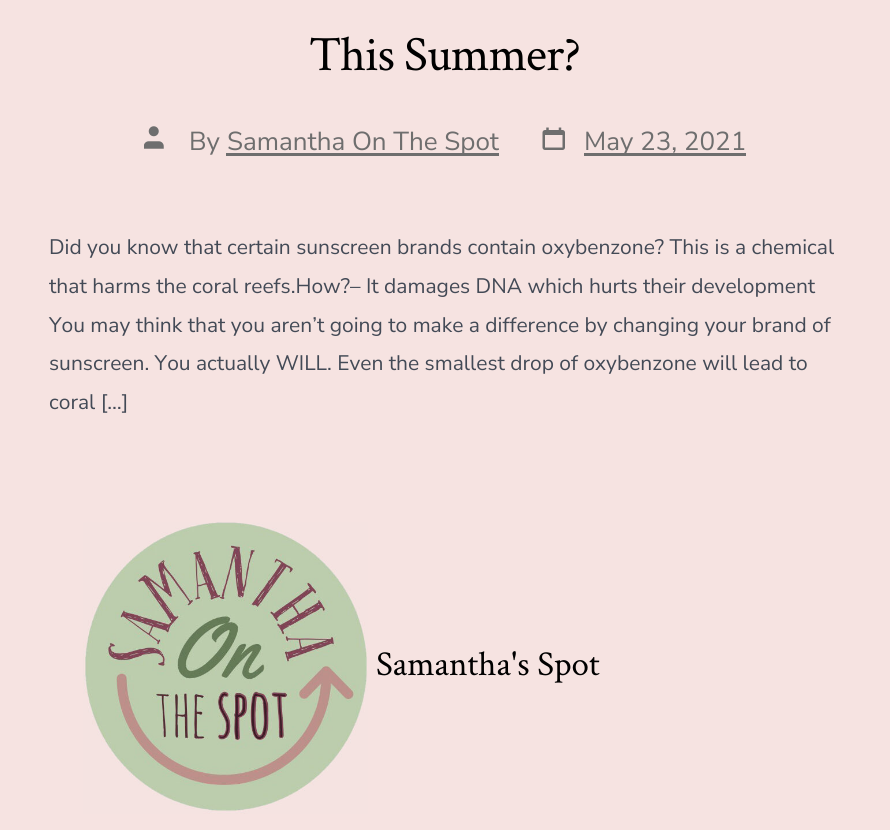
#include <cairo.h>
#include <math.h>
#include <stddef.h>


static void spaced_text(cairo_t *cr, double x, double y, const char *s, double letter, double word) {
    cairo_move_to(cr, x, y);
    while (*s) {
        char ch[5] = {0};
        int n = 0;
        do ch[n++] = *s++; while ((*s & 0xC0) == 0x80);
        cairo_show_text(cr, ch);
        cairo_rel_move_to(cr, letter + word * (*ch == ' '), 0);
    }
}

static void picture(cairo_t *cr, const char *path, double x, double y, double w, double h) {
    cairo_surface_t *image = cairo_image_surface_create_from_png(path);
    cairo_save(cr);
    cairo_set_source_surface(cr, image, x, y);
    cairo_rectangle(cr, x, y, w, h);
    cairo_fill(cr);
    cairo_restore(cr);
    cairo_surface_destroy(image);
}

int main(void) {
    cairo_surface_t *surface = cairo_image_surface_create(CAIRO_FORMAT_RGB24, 890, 830);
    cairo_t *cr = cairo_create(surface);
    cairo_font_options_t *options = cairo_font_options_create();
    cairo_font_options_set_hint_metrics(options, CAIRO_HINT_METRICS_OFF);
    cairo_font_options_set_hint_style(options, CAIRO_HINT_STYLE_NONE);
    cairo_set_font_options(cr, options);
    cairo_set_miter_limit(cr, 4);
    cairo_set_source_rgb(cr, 0.961, 0.89, 0.882);
    cairo_paint(cr);
    cairo_select_font_face(cr, "Crimson Text", CAIRO_FONT_SLANT_NORMAL, CAIRO_FONT_WEIGHT_NORMAL);
    cairo_set_font_size(cr, 49.5);
    cairo_set_source_rgb(cr, 0, 0, 0);
    spaced_text(cr, 309, 70, "This Summer?", -1, 0);
    picture(cr, "img1.png", 144, 126, 20, 23);
    cairo_select_font_face(cr, "Nunito Sans", CAIRO_FONT_SLANT_NORMAL, CAIRO_FONT_WEIGHT_NORMAL);
    cairo_set_font_size(cr, 26);
    cairo_set_source_rgb(cr, 0.431, 0.431, 0.431);
    cairo_move_to(cr, 189, 150);
    cairo_show_text(cr, "By");
    cairo_rectangle(cr, 226, 153, 273, 3);
    cairo_fill(cr);
    cairo_move_to(cr, 227, 150);
    cairo_show_text(cr, "Samantha On The Spot");
    picture(cr, "img2.png", 542, 127, 23, 23);
    cairo_rectangle(cr, 584, 153, 162, 3);
    cairo_fill(cr);
    cairo_move_to(cr, 584, 150);
    cairo_show_text(cr, "May 23, 2021");
    cairo_set_font_size(cr, 21);
    cairo_set_source_rgb(cr, 0.263, 0.29, 0.337);
    cairo_move_to(cr, 49, 254);
    cairo_show_text(cr, "Did you know that certain sunscreen brands contain oxybenzone? This is a chemical");
    cairo_move_to(cr, 49, 293);
    cairo_show_text(cr, "that harms the coral reefs.How?– It damages DNA which hurts their development");
    cairo_move_to(cr, 49, 332);
    cairo_show_text(cr, "You may think that you aren’t going to make a difference by changing your brand of");
    cairo_move_to(cr, 49, 370);
    cairo_show_text(cr, "sunscreen. You actually WILL. Even the smallest drop of oxybenzone will lead to");
    cairo_move_to(cr, 49, 409);
    cairo_show_text(cr, "coral […]");
    picture(cr, "img3.png", 83, 522, 285, 292);
    cairo_select_font_face(cr, "Crimson Text", CAIRO_FONT_SLANT_NORMAL, CAIRO_FONT_WEIGHT_NORMAL);
    cairo_set_font_size(cr, 35);
    cairo_set_source_rgb(cr, 0, 0, 0);
    cairo_move_to(cr, 376, 675);
    cairo_show_text(cr, "Samantha's Spot");
    cairo_surface_write_to_png(surface, "page.png");
    cairo_font_options_destroy(options);
    cairo_destroy(cr);
    cairo_surface_destroy(surface);
    return 0;
}
